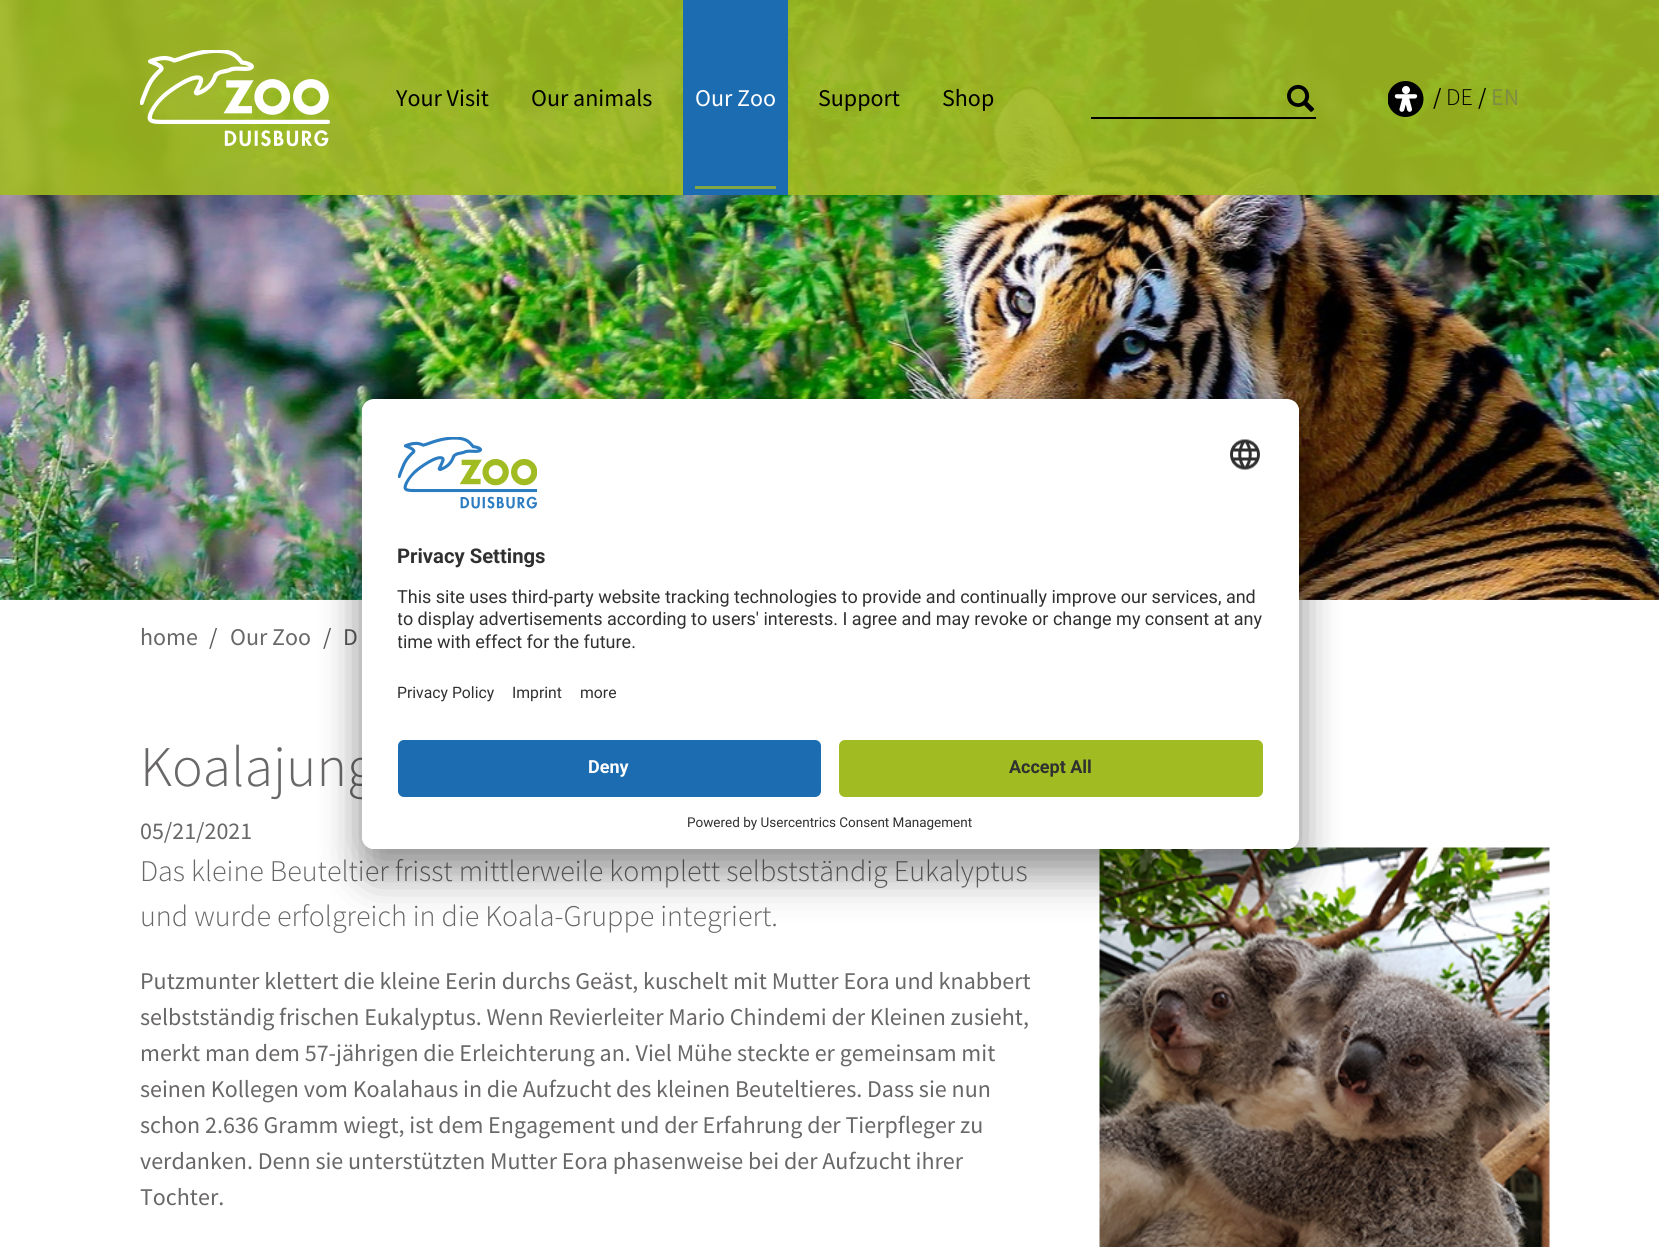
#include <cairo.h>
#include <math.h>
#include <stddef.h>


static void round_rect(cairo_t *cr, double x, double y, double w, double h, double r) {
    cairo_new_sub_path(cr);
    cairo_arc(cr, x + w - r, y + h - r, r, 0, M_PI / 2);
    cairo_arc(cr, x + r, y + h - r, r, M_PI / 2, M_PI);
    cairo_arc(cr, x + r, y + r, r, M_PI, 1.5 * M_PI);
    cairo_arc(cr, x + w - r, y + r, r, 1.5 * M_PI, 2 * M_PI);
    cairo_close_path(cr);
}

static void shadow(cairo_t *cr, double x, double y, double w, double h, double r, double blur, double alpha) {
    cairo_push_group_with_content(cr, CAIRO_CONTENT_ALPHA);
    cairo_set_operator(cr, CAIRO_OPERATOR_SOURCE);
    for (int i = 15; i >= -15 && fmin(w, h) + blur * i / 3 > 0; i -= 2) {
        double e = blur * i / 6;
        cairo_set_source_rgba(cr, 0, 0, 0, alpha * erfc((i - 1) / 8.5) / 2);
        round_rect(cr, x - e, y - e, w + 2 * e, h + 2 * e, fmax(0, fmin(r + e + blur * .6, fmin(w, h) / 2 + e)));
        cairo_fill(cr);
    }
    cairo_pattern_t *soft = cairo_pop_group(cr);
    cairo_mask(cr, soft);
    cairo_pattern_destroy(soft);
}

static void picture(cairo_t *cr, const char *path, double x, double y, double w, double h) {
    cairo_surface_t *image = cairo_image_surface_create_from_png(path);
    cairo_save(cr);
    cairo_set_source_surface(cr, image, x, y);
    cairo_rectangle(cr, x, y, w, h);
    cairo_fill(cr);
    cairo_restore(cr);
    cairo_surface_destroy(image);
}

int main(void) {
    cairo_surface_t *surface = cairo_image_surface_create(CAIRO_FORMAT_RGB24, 1659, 1247);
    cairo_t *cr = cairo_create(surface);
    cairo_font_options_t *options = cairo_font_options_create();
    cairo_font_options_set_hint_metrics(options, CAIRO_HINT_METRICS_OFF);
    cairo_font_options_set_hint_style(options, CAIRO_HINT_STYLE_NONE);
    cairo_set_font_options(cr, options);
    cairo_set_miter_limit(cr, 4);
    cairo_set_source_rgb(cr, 1, 1, 1);
    cairo_paint(cr);
    picture(cr, "img1.png", 0, 0, 1659, 600);
    cairo_set_source_rgba(cr, 0.631, 0.737, 0.133, 0.9);
    cairo_rectangle(cr, 0, 0, 1659, 195);
    cairo_fill(cr);
    picture(cr, "img2.png", 140, 50, 190, 97);
    cairo_select_font_face(cr, "Source Sans Pro", CAIRO_FONT_SLANT_NORMAL, CAIRO_FONT_WEIGHT_NORMAL);
    cairo_set_font_size(cr, 24);
    cairo_set_source_rgb(cr, 0, 0, 0);
    cairo_move_to(cr, 396, 106);
    cairo_show_text(cr, "Your Visit");
    cairo_move_to(cr, 531, 106);
    cairo_show_text(cr, "Our animals");
    cairo_set_source_rgb(cr, 0.11, 0.424, 0.694);
    cairo_rectangle(cr, 683, 0, 105, 195);
    cairo_fill(cr);
    cairo_set_source_rgb(cr, 1, 1, 1);
    cairo_move_to(cr, 695, 106);
    cairo_show_text(cr, "Our Zoo");
    cairo_set_source_rgb(cr, 0.502, 0.659, 0.275);
    cairo_rectangle(cr, 695, 186, 81, 3);
    cairo_fill(cr);
    cairo_set_source_rgb(cr, 0, 0, 0);
    cairo_move_to(cr, 818, 106);
    cairo_show_text(cr, "Support");
    cairo_move_to(cr, 942, 106);
    cairo_show_text(cr, "Shop");
    picture(cr, "img3.png", 1287, 84, 28, 28);
    cairo_rectangle(cr, 1091, 117, 225, 2);
    cairo_fill(cr);
    picture(cr, "img4.png", 1388, 81, 36, 36);
    cairo_move_to(cr, 1433, 105);
    cairo_show_text(cr, "/");
    cairo_select_font_face(cr, "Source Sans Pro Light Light", CAIRO_FONT_SLANT_NORMAL, CAIRO_FONT_WEIGHT_NORMAL);
    cairo_move_to(cr, 1446, 105);
    cairo_show_text(cr, "DE");
    cairo_select_font_face(cr, "Source Sans Pro", CAIRO_FONT_SLANT_NORMAL, CAIRO_FONT_WEIGHT_NORMAL);
    cairo_move_to(cr, 1478, 105);
    cairo_show_text(cr, "/");
    cairo_set_source_rgb(cr, 0.494, 0.549, 0.267);
    cairo_move_to(cr, 1491, 105);
    cairo_show_text(cr, "EN");
    cairo_set_source_rgb(cr, 0.412, 0.404, 0.404);
    cairo_move_to(cr, 140, 645);
    cairo_show_text(cr, "home");
    cairo_set_source_rgb(cr, 0.349, 0.349, 0.349);
    cairo_move_to(cr, 209, 645);
    cairo_show_text(cr, "/");
    cairo_set_source_rgb(cr, 0.412, 0.404, 0.404);
    cairo_move_to(cr, 230, 645);
    cairo_show_text(cr, "Our Zoo");
    cairo_set_source_rgb(cr, 0.349, 0.349, 0.349);
    cairo_move_to(cr, 323, 645);
    cairo_show_text(cr, "/");
    cairo_move_to(cr, 343, 645);
    cairo_show_text(cr, "D");
    cairo_select_font_face(cr, "Source Sans Pro Light Light", CAIRO_FONT_SLANT_NORMAL, CAIRO_FONT_WEIGHT_NORMAL);
    cairo_set_font_size(cr, 57.5);
    cairo_set_source_rgb(cr, 0.412, 0.404, 0.404);
    cairo_move_to(cr, 140, 786);
    cairo_show_text(cr, "Koalajung");
    cairo_select_font_face(cr, "Source Sans Pro", CAIRO_FONT_SLANT_NORMAL, CAIRO_FONT_WEIGHT_NORMAL);
    cairo_set_font_size(cr, 24);
    cairo_move_to(cr, 140, 839);
    cairo_show_text(cr, "05/21/2021");
    cairo_select_font_face(cr, "Source Sans Pro Light Light", CAIRO_FONT_SLANT_NORMAL, CAIRO_FONT_WEIGHT_NORMAL);
    cairo_set_font_size(cr, 30);
    cairo_move_to(cr, 140, 881);
    cairo_show_text(cr, "Das kleine Beuteltier frisst mittlerweile komplett selbstständig Eukalyptus");
    cairo_move_to(cr, 140, 926);
    cairo_show_text(cr, "und wurde erfolgreich in die Koala-Gruppe integriert.");
    cairo_select_font_face(cr, "Source Sans Pro", CAIRO_FONT_SLANT_NORMAL, CAIRO_FONT_WEIGHT_NORMAL);
    cairo_set_font_size(cr, 24);
    cairo_move_to(cr, 140, 989);
    cairo_show_text(cr, "Putzmunter klettert die kleine Eerin durchs Geäst, kuschelt mit Mutter Eora und knabbert");
    cairo_move_to(cr, 140, 1025);
    cairo_show_text(cr, "selbstständig frischen Eukalyptus. Wenn Revierleiter Mario Chindemi der Kleinen zusieht,");
    cairo_move_to(cr, 140, 1061);
    cairo_show_text(cr, "merkt man dem 57-jährigen die Erleichterung an. Viel Mühe steckte er gemeinsam mit");
    cairo_move_to(cr, 140, 1097);
    cairo_show_text(cr, "seinen Kollegen vom Koalahaus in die Aufzucht des kleinen Beuteltieres. Dass sie nun");
    cairo_move_to(cr, 140, 1133);
    cairo_show_text(cr, "schon 2.636 Gramm wiegt, ist dem Engagement und der Erfahrung der Tierpfleger zu");
    cairo_move_to(cr, 140, 1169);
    cairo_show_text(cr, "verdanken. Denn sie unterstützten Mutter Eora phasenweise bei der Aufzucht ihrer");
    cairo_move_to(cr, 140, 1205);
    cairo_show_text(cr, "Tochter.");
    picture(cr, "img5.png", 1099, 847, 451, 400);
    cairo_set_source_rgb(cr, 0, 0, 0);
    shadow(cr, 362, 429, 937, 450, 12, 21, 0.3);
    shadow(cr, 362, 407, 937, 450, 12, 19.5, 0.22);
    cairo_set_source_rgb(cr, 1, 1, 1);
    round_rect(cr, 362, 399, 937, 450, 12);
    cairo_fill(cr);
    cairo_save(cr);
    round_rect(cr, 362, 399, 937, 450, 12);
    cairo_clip(cr);
    cairo_new_path(cr);
    cairo_move_to(cr, 374, 399);
    cairo_line_to(cr, 1287, 399);
    cairo_curve_to(cr, 1293.5, 399, 1299, 404.5, 1299, 411);
    cairo_line_to(cr, 1299, 728);
    cairo_line_to(cr, 362, 728);
    cairo_line_to(cr, 362, 411);
    cairo_curve_to(cr, 362, 404.5, 367.5, 399, 374, 399);
    cairo_close_path(cr);
    cairo_clip(cr);
    cairo_rectangle(cr, 362, 401, 937, 327);
    cairo_fill(cr);
    cairo_restore(cr);
    picture(cr, "img6.png", 398, 437, 139, 72);
    picture(cr, "img7.png", 1230, 439, 30, 31);
    cairo_select_font_face(cr, "Roboto", CAIRO_FONT_SLANT_NORMAL, CAIRO_FONT_WEIGHT_BOLD);
    cairo_set_font_size(cr, 20.25);
    cairo_set_source_rgb(cr, 0.188, 0.188, 0.188);
    cairo_move_to(cr, 397, 563);
    cairo_show_text(cr, "Privacy Settings");
    cairo_select_font_face(cr, "Roboto", CAIRO_FONT_SLANT_NORMAL, CAIRO_FONT_WEIGHT_NORMAL);
    cairo_set_font_size(cr, 18);
    cairo_move_to(cr, 397, 603);
    cairo_show_text(cr, "This site uses third-party website tracking technologies to provide and continually improve our services, and");
    cairo_save(cr);
    cairo_rectangle(cr, 398, 581, 865, 79);
    cairo_clip(cr);
    cairo_move_to(cr, 397, 625);
    cairo_show_text(cr, "to display advertisements according to users' interests. I agree and may revoke or change my consent at any");
    cairo_move_to(cr, 397, 648);
    cairo_show_text(cr, "time with effect for the future.");
    cairo_restore(cr);
    cairo_set_font_size(cr, 15.75);
    cairo_move_to(cr, 397, 698);
    cairo_show_text(cr, "Privacy Policy");
    cairo_move_to(cr, 512, 698);
    cairo_show_text(cr, "Imprint");
    cairo_move_to(cr, 580, 698);
    cairo_show_text(cr, "more");
    cairo_set_source_rgb(cr, 1, 1, 1);
    cairo_new_path(cr);
    cairo_move_to(cr, 362, 728);
    cairo_line_to(cr, 1299, 728);
    cairo_line_to(cr, 1299, 837);
    cairo_curve_to(cr, 1299, 843.5, 1293.5, 849, 1287, 849);
    cairo_line_to(cr, 374, 849);
    cairo_curve_to(cr, 367.5, 849, 362, 843.5, 362, 837);
    cairo_close_path(cr);
    cairo_fill(cr);
    cairo_set_source_rgb(cr, 0.11, 0.424, 0.694);
    round_rect(cr, 398, 740, 423, 57, 6);
    cairo_fill(cr);
    cairo_select_font_face(cr, "Roboto", CAIRO_FONT_SLANT_NORMAL, CAIRO_FONT_WEIGHT_BOLD);
    cairo_set_font_size(cr, 18);
    cairo_set_source_rgb(cr, 1, 1, 1);
    cairo_move_to(cr, 588, 773);
    cairo_show_text(cr, "Deny");
    cairo_set_source_rgb(cr, 0.631, 0.737, 0.133);
    round_rect(cr, 839, 740, 424, 57, 6);
    cairo_fill(cr);
    cairo_set_source_rgb(cr, 0.188, 0.188, 0.188);
    cairo_move_to(cr, 1009, 773);
    cairo_show_text(cr, "Accept All");
    cairo_select_font_face(cr, "Roboto", CAIRO_FONT_SLANT_NORMAL, CAIRO_FONT_WEIGHT_NORMAL);
    cairo_set_font_size(cr, 13.5);
    cairo_move_to(cr, 687, 827);
    cairo_show_text(cr, "Powered by Usercentrics Consent Management");
    cairo_surface_write_to_png(surface, "page.png");
    cairo_font_options_destroy(options);
    cairo_destroy(cr);
    cairo_surface_destroy(surface);
    return 0;
}
